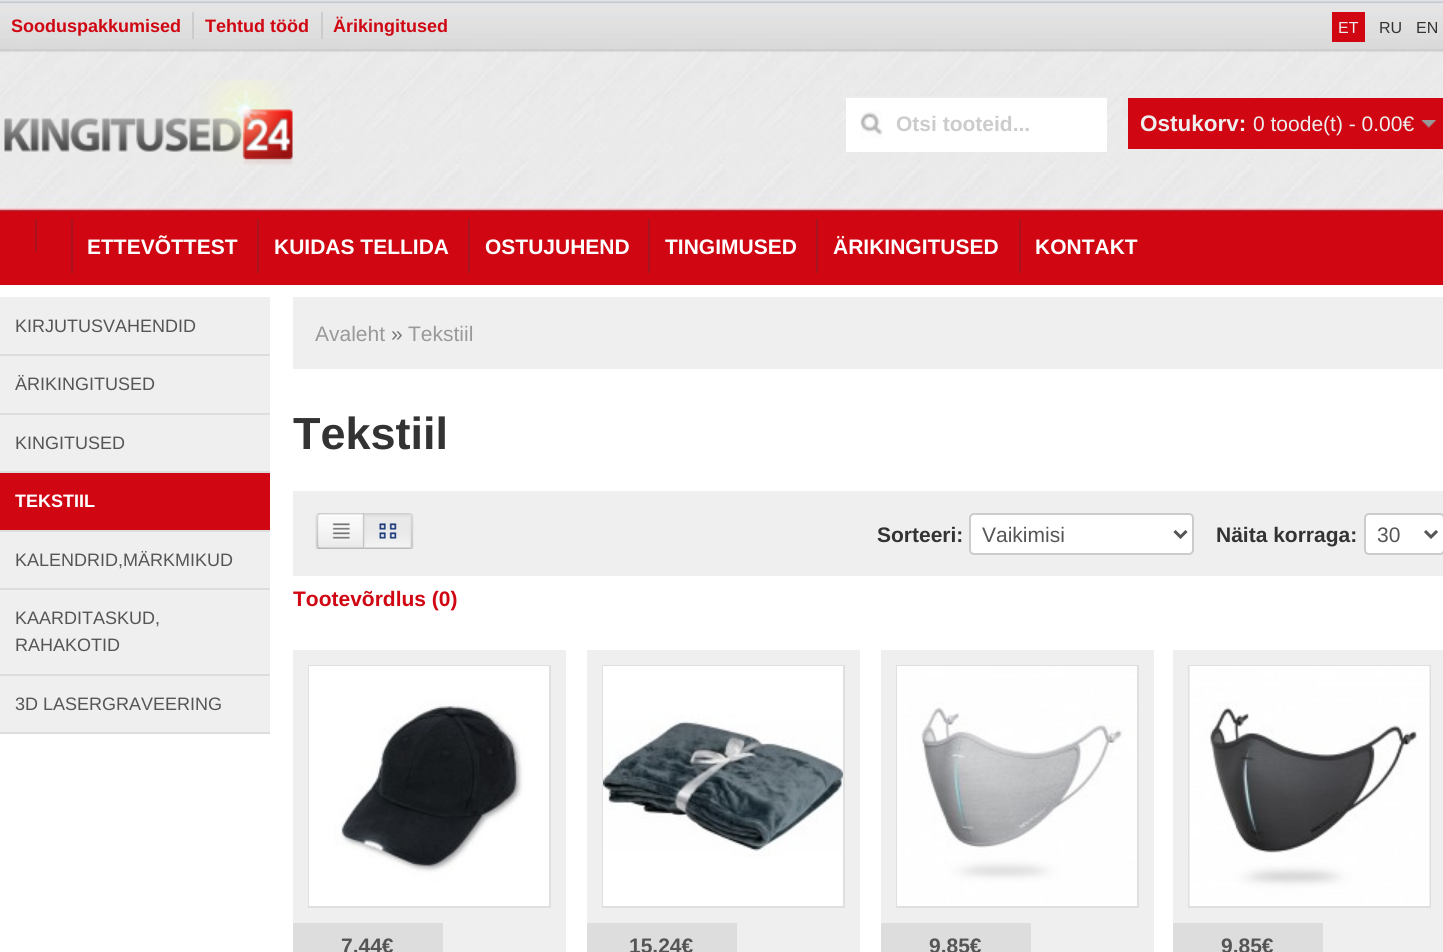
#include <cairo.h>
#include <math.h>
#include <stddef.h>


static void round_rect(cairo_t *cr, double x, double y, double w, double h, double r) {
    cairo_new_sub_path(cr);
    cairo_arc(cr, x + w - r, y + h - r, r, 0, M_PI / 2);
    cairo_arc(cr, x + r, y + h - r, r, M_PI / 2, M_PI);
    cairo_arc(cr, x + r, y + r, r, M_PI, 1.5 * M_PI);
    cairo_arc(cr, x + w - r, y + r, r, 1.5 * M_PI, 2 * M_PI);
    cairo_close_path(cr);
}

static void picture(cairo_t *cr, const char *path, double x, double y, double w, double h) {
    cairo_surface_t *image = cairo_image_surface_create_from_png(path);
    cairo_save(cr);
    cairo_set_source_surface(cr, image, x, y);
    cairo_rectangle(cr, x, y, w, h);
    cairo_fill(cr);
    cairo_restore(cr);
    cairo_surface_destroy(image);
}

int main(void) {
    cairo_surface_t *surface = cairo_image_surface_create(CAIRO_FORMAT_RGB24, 1443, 952);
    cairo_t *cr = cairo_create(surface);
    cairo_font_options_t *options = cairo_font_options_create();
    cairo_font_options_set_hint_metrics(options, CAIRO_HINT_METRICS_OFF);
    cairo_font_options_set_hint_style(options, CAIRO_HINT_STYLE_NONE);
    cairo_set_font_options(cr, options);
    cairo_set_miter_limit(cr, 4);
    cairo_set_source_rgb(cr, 1, 1, 1);
    cairo_paint(cr);
    picture(cr, "img1.png", 0, 0, 1443, 285);
    cairo_select_font_face(cr, "Liberation Sans", CAIRO_FONT_SLANT_NORMAL, CAIRO_FONT_WEIGHT_BOLD);
    cairo_set_font_size(cr, 18);
    cairo_set_source_rgb(cr, 0.816, 0.024, 0.071);
    cairo_move_to(cr, 11, 32);
    cairo_show_text(cr, "Sooduspakkumised");
    cairo_set_source_rgb(cr, 0.8, 0.8, 0.8);
    cairo_rectangle(cr, 192, 12, 2, 27);
    cairo_fill(cr);
    cairo_set_source_rgb(cr, 0.816, 0.024, 0.071);
    cairo_move_to(cr, 205, 32);
    cairo_show_text(cr, "Tehtud tööd");
    cairo_set_source_rgb(cr, 0.8, 0.8, 0.8);
    cairo_rectangle(cr, 321, 12, 2, 27);
    cairo_fill(cr);
    cairo_set_source_rgb(cr, 0.816, 0.024, 0.071);
    cairo_move_to(cr, 333, 32);
    cairo_show_text(cr, "Ärikingitused");
    cairo_rectangle(cr, 1332, 12, 33, 30);
    cairo_fill(cr);
    cairo_select_font_face(cr, "Liberation Sans", CAIRO_FONT_SLANT_NORMAL, CAIRO_FONT_WEIGHT_NORMAL);
    cairo_set_font_size(cr, 16);
    cairo_set_source_rgb(cr, 0.933, 0.933, 0.933);
    cairo_move_to(cr, 1338, 33);
    cairo_show_text(cr, "ET");
    cairo_set_source_rgb(cr, 0.2, 0.2, 0.2);
    cairo_move_to(cr, 1379, 33);
    cairo_show_text(cr, "RU");
    cairo_move_to(cr, 1416, 33);
    cairo_show_text(cr, "EN");
    picture(cr, "img2.png", 4, 79, 289, 87);
    cairo_set_source_rgb(cr, 1, 1, 1);
    cairo_rectangle(cr, 846, 98, 261, 54);
    cairo_fill(cr);
    picture(cr, "img3.png", 860, 110, 23, 28);
    cairo_set_source_rgb(cr, 0.925, 0.925, 0.925);
    cairo_rectangle(cr, 846, 96, 261, 2);
    cairo_fill(cr);
    cairo_select_font_face(cr, "Liberation Sans", CAIRO_FONT_SLANT_NORMAL, CAIRO_FONT_WEIGHT_BOLD);
    cairo_set_font_size(cr, 21);
    cairo_set_source_rgb(cr, 0.8, 0.8, 0.8);
    cairo_move_to(cr, 896, 131);
    cairo_show_text(cr, "Otsi tooteid...");
    cairo_set_source_rgb(cr, 0.816, 0.024, 0.071);
    cairo_rectangle(cr, 1128, 98, 315, 51);
    cairo_fill(cr);
    cairo_set_font_size(cr, 22.5);
    cairo_set_source_rgb(cr, 0.933, 0.933, 0.933);
    cairo_move_to(cr, 1140, 131);
    cairo_show_text(cr, "Ostukorv:");
    cairo_select_font_face(cr, "Liberation Sans", CAIRO_FONT_SLANT_NORMAL, CAIRO_FONT_WEIGHT_NORMAL);
    cairo_set_font_size(cr, 21);
    cairo_move_to(cr, 1253, 131);
    cairo_show_text(cr, "0 toode(t) - 0.00€");
    picture(cr, "img4.png", 1422, 120, 14, 8);
    cairo_set_source_rgb(cr, 0.655, 0.078, 0.118);
    cairo_rectangle(cr, 35, 219, 2, 33);
    cairo_fill(cr);
    cairo_rectangle(cr, 71, 219, 2, 54);
    cairo_fill(cr);
    cairo_select_font_face(cr, "Liberation Sans", CAIRO_FONT_SLANT_NORMAL, CAIRO_FONT_WEIGHT_BOLD);
    cairo_set_source_rgb(cr, 1, 1, 1);
    cairo_move_to(cr, 87, 254);
    cairo_show_text(cr, "ETTEVÕTTEST");
    cairo_set_source_rgb(cr, 0.655, 0.078, 0.118);
    cairo_rectangle(cr, 257, 219, 2, 54);
    cairo_fill(cr);
    cairo_set_source_rgb(cr, 1, 1, 1);
    cairo_move_to(cr, 274, 254);
    cairo_show_text(cr, "KUIDAS TELLIDA");
    cairo_set_source_rgb(cr, 0.655, 0.078, 0.118);
    cairo_rectangle(cr, 468, 219, 2, 54);
    cairo_fill(cr);
    cairo_set_source_rgb(cr, 1, 1, 1);
    cairo_move_to(cr, 485, 254);
    cairo_show_text(cr, "OSTUJUHEND");
    cairo_set_source_rgb(cr, 0.655, 0.078, 0.118);
    cairo_rectangle(cr, 648, 219, 2, 54);
    cairo_fill(cr);
    cairo_set_source_rgb(cr, 1, 1, 1);
    cairo_move_to(cr, 665, 254);
    cairo_show_text(cr, "TINGIMUSED");
    cairo_set_source_rgb(cr, 0.655, 0.078, 0.118);
    cairo_rectangle(cr, 816, 219, 2, 54);
    cairo_fill(cr);
    cairo_set_source_rgb(cr, 1, 1, 1);
    cairo_move_to(cr, 833, 254);
    cairo_show_text(cr, "ÄRIKINGITUSED");
    cairo_set_source_rgb(cr, 0.655, 0.078, 0.118);
    cairo_rectangle(cr, 1019, 219, 2, 54);
    cairo_fill(cr);
    cairo_set_source_rgb(cr, 1, 1, 1);
    cairo_move_to(cr, 1035, 254);
    cairo_show_text(cr, "KONTAKT");
    cairo_set_source_rgb(cr, 0.937, 0.937, 0.937);
    cairo_rectangle(cr, 0, 297, 270, 435);
    cairo_fill(cr);
    cairo_set_source_rgb(cr, 0.867, 0.867, 0.867);
    cairo_rectangle(cr, 0, 354, 270, 2);
    cairo_fill(cr);
    cairo_select_font_face(cr, "Liberation Sans", CAIRO_FONT_SLANT_NORMAL, CAIRO_FONT_WEIGHT_NORMAL);
    cairo_set_font_size(cr, 18);
    cairo_set_source_rgb(cr, 0.333, 0.333, 0.333);
    cairo_move_to(cr, 15, 332);
    cairo_show_text(cr, "KIRJUTUSVAHENDID");
    cairo_set_source_rgb(cr, 0.867, 0.867, 0.867);
    cairo_rectangle(cr, 0, 413, 270, 2);
    cairo_fill(cr);
    cairo_set_source_rgb(cr, 0.333, 0.333, 0.333);
    cairo_move_to(cr, 15, 390);
    cairo_show_text(cr, "ÄRIKINGITUSED");
    cairo_set_source_rgb(cr, 0.867, 0.867, 0.867);
    cairo_rectangle(cr, 0, 471, 270, 2);
    cairo_fill(cr);
    cairo_set_source_rgb(cr, 0.333, 0.333, 0.333);
    cairo_move_to(cr, 15, 449);
    cairo_show_text(cr, "KINGITUSED");
    cairo_set_source_rgb(cr, 0.867, 0.867, 0.867);
    cairo_rectangle(cr, 0, 530, 270, 2);
    cairo_fill(cr);
    cairo_set_source_rgb(cr, 0.816, 0.024, 0.071);
    cairo_rectangle(cr, 0, 473, 270, 57);
    cairo_fill(cr);
    cairo_select_font_face(cr, "Liberation Sans", CAIRO_FONT_SLANT_NORMAL, CAIRO_FONT_WEIGHT_BOLD);
    cairo_set_source_rgb(cr, 1, 1, 1);
    cairo_move_to(cr, 15, 507);
    cairo_show_text(cr, "TEKSTIIL");
    cairo_set_source_rgb(cr, 0.867, 0.867, 0.867);
    cairo_rectangle(cr, 0, 588, 270, 2);
    cairo_fill(cr);
    cairo_select_font_face(cr, "Liberation Sans", CAIRO_FONT_SLANT_NORMAL, CAIRO_FONT_WEIGHT_NORMAL);
    cairo_set_source_rgb(cr, 0.333, 0.333, 0.333);
    cairo_move_to(cr, 15, 566);
    cairo_show_text(cr, "KALENDRID,MÄRKMIKUD");
    cairo_set_source_rgb(cr, 0.867, 0.867, 0.867);
    cairo_rectangle(cr, 0, 674, 270, 2);
    cairo_fill(cr);
    cairo_set_source_rgb(cr, 0.333, 0.333, 0.333);
    cairo_move_to(cr, 15, 624);
    cairo_show_text(cr, "KAARDITASKUD,");
    cairo_move_to(cr, 15, 651);
    cairo_show_text(cr, "RAHAKOTID");
    cairo_set_source_rgb(cr, 0.867, 0.867, 0.867);
    cairo_rectangle(cr, 0, 732, 270, 2);
    cairo_fill(cr);
    cairo_set_source_rgb(cr, 0.333, 0.333, 0.333);
    cairo_move_to(cr, 15, 710);
    cairo_show_text(cr, "3D LASERGRAVEERING");
    cairo_set_source_rgb(cr, 0.937, 0.937, 0.937);
    cairo_rectangle(cr, 293, 297, 1150, 72);
    cairo_fill(cr);
    cairo_set_font_size(cr, 21);
    cairo_set_source_rgb(cr, 0.6, 0.6, 0.6);
    cairo_move_to(cr, 315, 341);
    cairo_show_text(cr, "Avaleht");
    cairo_set_source_rgb(cr, 0.467, 0.467, 0.467);
    cairo_move_to(cr, 391, 341);
    cairo_show_text(cr, "»");
    cairo_set_source_rgb(cr, 0.6, 0.6, 0.6);
    cairo_move_to(cr, 408, 341);
    cairo_show_text(cr, "Tekstiil");
    cairo_select_font_face(cr, "Liberation Sans", CAIRO_FONT_SLANT_NORMAL, CAIRO_FONT_WEIGHT_BOLD);
    cairo_set_font_size(cr, 45);
    cairo_set_source_rgb(cr, 0.2, 0.2, 0.2);
    cairo_move_to(cr, 293, 449);
    cairo_show_text(cr, "Tekstiil");
    cairo_set_source_rgb(cr, 0.937, 0.937, 0.937);
    cairo_rectangle(cr, 293, 491, 1150, 85);
    cairo_fill(cr);
    picture(cr, "img5.png", 315, 513, 50, 36);
    picture(cr, "img6.png", 364, 513, 50, 36);
    cairo_set_font_size(cr, 21);
    cairo_set_source_rgb(cr, 0.2, 0.2, 0.2);
    cairo_move_to(cr, 877, 542);
    cairo_show_text(cr, "Sorteeri:");
    cairo_set_source_rgb(cr, 1, 1, 1);
    round_rect(cr, 970, 514, 223, 40, 4);
    cairo_fill_preserve(cr);
    cairo_set_source_rgb(cr, 0.8, 0.8, 0.8);
    cairo_stroke(cr);
    cairo_new_path(cr);
    cairo_move_to(cr, 1174.5, 531);
    cairo_line_to(cr, 1180.5, 537);
    cairo_line_to(cr, 1186.5, 531);
    cairo_set_source_rgb(cr, 0.333, 0.333, 0.333);
    cairo_set_line_width(cr, 3);
    cairo_stroke(cr);
    cairo_select_font_face(cr, "Liberation Sans", CAIRO_FONT_SLANT_NORMAL, CAIRO_FONT_WEIGHT_NORMAL);
    cairo_move_to(cr, 982, 542);
    cairo_show_text(cr, "Vaikimisi");
    cairo_select_font_face(cr, "Liberation Sans", CAIRO_FONT_SLANT_NORMAL, CAIRO_FONT_WEIGHT_BOLD);
    cairo_set_source_rgb(cr, 0.2, 0.2, 0.2);
    cairo_move_to(cr, 1216, 542);
    cairo_show_text(cr, "Näita korraga:");
    cairo_set_source_rgb(cr, 1, 1, 1);
    round_rect(cr, 1365, 514, 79, 40, 4);
    cairo_fill_preserve(cr);
    cairo_set_source_rgb(cr, 0.8, 0.8, 0.8);
    cairo_set_line_width(cr, 2);
    cairo_stroke(cr);
    cairo_new_path(cr);
    cairo_move_to(cr, 1425, 531);
    cairo_line_to(cr, 1431, 537);
    cairo_line_to(cr, 1437, 531);
    cairo_set_source_rgb(cr, 0.333, 0.333, 0.333);
    cairo_set_line_width(cr, 3);
    cairo_stroke(cr);
    cairo_select_font_face(cr, "Liberation Sans", CAIRO_FONT_SLANT_NORMAL, CAIRO_FONT_WEIGHT_NORMAL);
    cairo_move_to(cr, 1377, 542);
    cairo_show_text(cr, "30");
    cairo_select_font_face(cr, "Liberation Sans", CAIRO_FONT_SLANT_NORMAL, CAIRO_FONT_WEIGHT_BOLD);
    cairo_set_source_rgb(cr, 0.816, 0.024, 0.071);
    cairo_move_to(cr, 293, 606);
    cairo_show_text(cr, "Tootevõrdlus (0)");
    cairo_set_source_rgb(cr, 0.937, 0.937, 0.937);
    cairo_rectangle(cr, 293, 650, 273, 302);
    cairo_fill(cr);
    cairo_rectangle(cr, 309, 666, 241, 241);
    cairo_set_source_rgb(cr, 0.875, 0.875, 0.875);
    cairo_set_line_width(cr, 2);
    cairo_stroke(cr);
    picture(cr, "img7.png", 309, 666, 240, 240);
    cairo_set_source_rgb(cr, 0.867, 0.867, 0.867);
    cairo_rectangle(cr, 293, 923, 150, 29);
    cairo_fill(cr);
    cairo_set_source_rgb(cr, 0.333, 0.333, 0.333);
    cairo_move_to(cr, 341, 953);
    cairo_show_text(cr, "7.44€");
    cairo_set_source_rgb(cr, 0.937, 0.937, 0.937);
    cairo_rectangle(cr, 587, 650, 273, 302);
    cairo_fill(cr);
    cairo_rectangle(cr, 603, 666, 241, 241);
    cairo_set_source_rgb(cr, 0.875, 0.875, 0.875);
    cairo_stroke(cr);
    picture(cr, "img8.png", 603, 666, 240, 240);
    cairo_set_source_rgb(cr, 0.867, 0.867, 0.867);
    cairo_rectangle(cr, 587, 923, 150, 29);
    cairo_fill(cr);
    cairo_set_source_rgb(cr, 0.333, 0.333, 0.333);
    cairo_move_to(cr, 629, 953);
    cairo_show_text(cr, "15.24€");
    cairo_set_source_rgb(cr, 0.937, 0.937, 0.937);
    cairo_rectangle(cr, 881, 650, 273, 302);
    cairo_fill(cr);
    cairo_rectangle(cr, 897, 666, 241, 241);
    cairo_set_source_rgb(cr, 0.875, 0.875, 0.875);
    cairo_stroke(cr);
    picture(cr, "img9.png", 897, 666, 240, 240);
    cairo_set_source_rgb(cr, 0.867, 0.867, 0.867);
    cairo_rectangle(cr, 881, 923, 150, 29);
    cairo_fill(cr);
    cairo_set_source_rgb(cr, 0.333, 0.333, 0.333);
    cairo_move_to(cr, 929, 953);
    cairo_show_text(cr, "9.85€");
    cairo_set_source_rgb(cr, 0.937, 0.937, 0.937);
    cairo_rectangle(cr, 1173, 650, 270, 302);
    cairo_fill(cr);
    cairo_rectangle(cr, 1189, 666, 241, 241);
    cairo_set_source_rgb(cr, 0.875, 0.875, 0.875);
    cairo_stroke(cr);
    picture(cr, "img10.png", 1189, 666, 241, 240);
    cairo_set_source_rgb(cr, 0.867, 0.867, 0.867);
    cairo_rectangle(cr, 1173, 923, 150, 29);
    cairo_fill(cr);
    cairo_set_source_rgb(cr, 0.333, 0.333, 0.333);
    cairo_move_to(cr, 1221, 953);
    cairo_show_text(cr, "9.85€");
    cairo_surface_write_to_png(surface, "page.png");
    cairo_font_options_destroy(options);
    cairo_destroy(cr);
    cairo_surface_destroy(surface);
    return 0;
}
